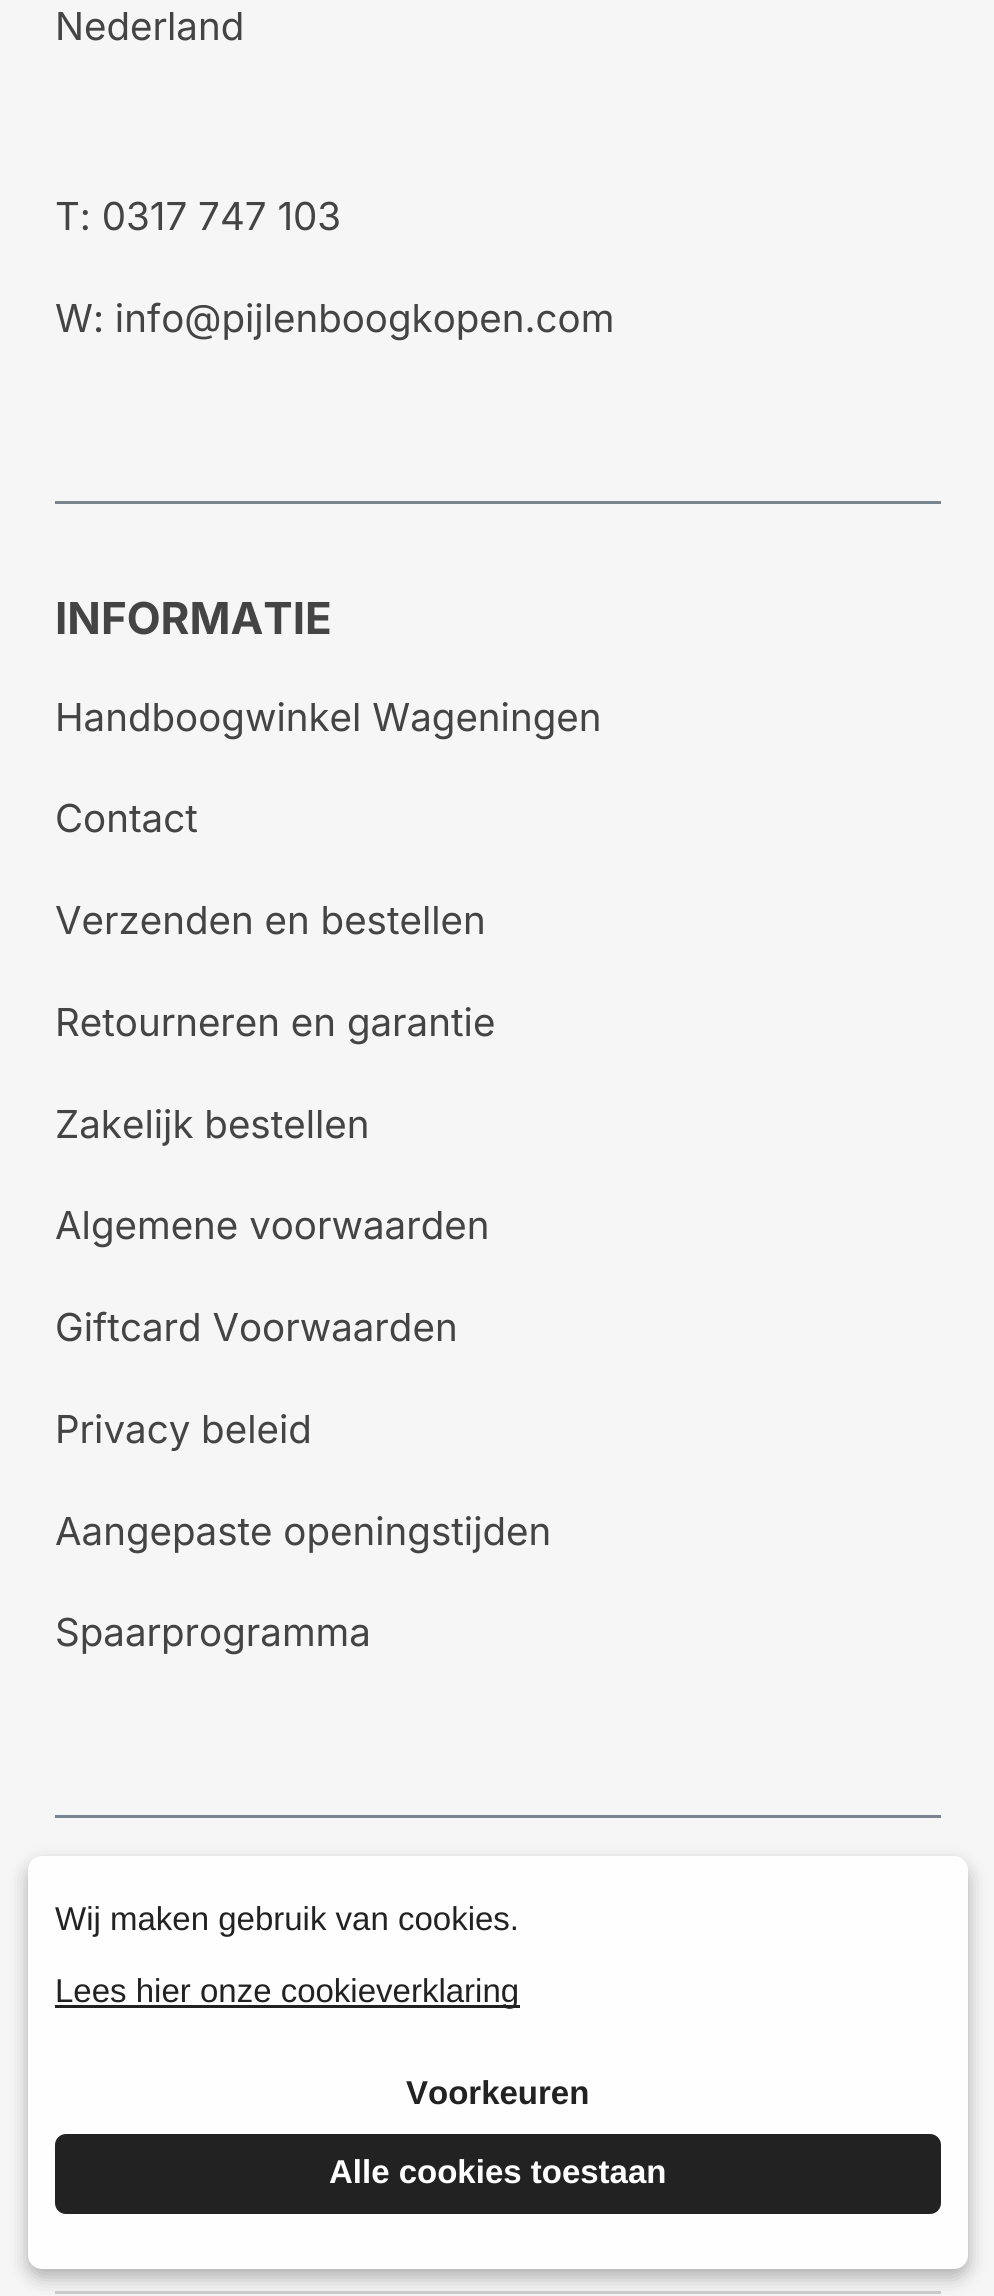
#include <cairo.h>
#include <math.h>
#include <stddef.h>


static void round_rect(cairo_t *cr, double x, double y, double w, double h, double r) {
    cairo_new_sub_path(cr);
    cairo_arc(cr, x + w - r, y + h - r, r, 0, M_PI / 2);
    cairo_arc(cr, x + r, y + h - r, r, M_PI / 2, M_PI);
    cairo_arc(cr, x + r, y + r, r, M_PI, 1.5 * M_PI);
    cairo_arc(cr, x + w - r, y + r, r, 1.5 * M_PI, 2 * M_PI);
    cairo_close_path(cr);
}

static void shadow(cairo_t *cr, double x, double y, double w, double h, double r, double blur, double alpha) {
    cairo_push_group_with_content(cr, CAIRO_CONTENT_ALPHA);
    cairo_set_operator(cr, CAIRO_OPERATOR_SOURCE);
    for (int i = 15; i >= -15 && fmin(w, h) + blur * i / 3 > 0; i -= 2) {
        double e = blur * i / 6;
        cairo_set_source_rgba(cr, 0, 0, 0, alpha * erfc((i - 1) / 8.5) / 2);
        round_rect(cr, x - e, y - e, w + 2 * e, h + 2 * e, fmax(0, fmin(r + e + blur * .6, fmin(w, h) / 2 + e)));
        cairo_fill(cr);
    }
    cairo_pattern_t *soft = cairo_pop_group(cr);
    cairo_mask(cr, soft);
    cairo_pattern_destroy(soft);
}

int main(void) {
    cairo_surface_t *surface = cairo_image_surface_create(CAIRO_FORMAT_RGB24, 994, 2296);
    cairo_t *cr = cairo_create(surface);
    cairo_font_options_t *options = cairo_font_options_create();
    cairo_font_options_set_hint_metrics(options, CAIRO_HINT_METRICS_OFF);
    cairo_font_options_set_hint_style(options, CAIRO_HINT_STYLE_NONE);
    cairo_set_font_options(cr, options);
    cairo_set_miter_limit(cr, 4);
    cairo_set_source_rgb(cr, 0.961, 0.961, 0.961);
    cairo_paint(cr);
    cairo_set_source_rgb(cr, 0.475, 0.518, 0.565);
    cairo_rectangle(cr, 55, 501, 886, 3);
    cairo_fill(cr);
    cairo_select_font_face(cr, "Inter", CAIRO_FONT_SLANT_NORMAL, CAIRO_FONT_WEIGHT_NORMAL);
    cairo_set_font_size(cr, 38.5);
    cairo_set_source_rgb(cr, 0.267, 0.267, 0.267);
    cairo_move_to(cr, 55, 40);
    cairo_show_text(cr, "Nederland");
    cairo_move_to(cr, 55, 230);
    cairo_show_text(cr, "T: 0317 747 103");
    cairo_move_to(cr, 55, 332);
    cairo_show_text(cr, "W: info@pijlenboogkopen.com");
    cairo_set_source_rgb(cr, 0.475, 0.518, 0.565);
    cairo_rectangle(cr, 55, 1815, 886, 3);
    cairo_fill(cr);
    cairo_select_font_face(cr, "Inter", CAIRO_FONT_SLANT_NORMAL, CAIRO_FONT_WEIGHT_BOLD);
    cairo_set_font_size(cr, 44);
    cairo_set_source_rgb(cr, 0.267, 0.267, 0.267);
    cairo_move_to(cr, 55, 634);
    cairo_show_text(cr, "INFORMATIE");
    cairo_select_font_face(cr, "Inter", CAIRO_FONT_SLANT_NORMAL, CAIRO_FONT_WEIGHT_NORMAL);
    cairo_set_font_size(cr, 38.5);
    cairo_move_to(cr, 55, 731);
    cairo_show_text(cr, "Handboogwinkel Wageningen");
    cairo_move_to(cr, 55, 832);
    cairo_show_text(cr, "Contact");
    cairo_move_to(cr, 55, 934);
    cairo_show_text(cr, "Verzenden en bestellen");
    cairo_move_to(cr, 55, 1036);
    cairo_show_text(cr, "Retourneren en garantie");
    cairo_move_to(cr, 55, 1138);
    cairo_show_text(cr, "Zakelijk bestellen");
    cairo_move_to(cr, 55, 1239);
    cairo_show_text(cr, "Algemene voorwaarden");
    cairo_move_to(cr, 55, 1341);
    cairo_show_text(cr, "Giftcard Voorwaarden");
    cairo_move_to(cr, 55, 1443);
    cairo_show_text(cr, "Privacy beleid");
    cairo_move_to(cr, 55, 1545);
    cairo_show_text(cr, "Aangepaste openingstijden");
    cairo_move_to(cr, 55, 1646);
    cairo_show_text(cr, "Spaarprogramma");
    cairo_set_source_rgb(cr, 0.8, 0.8, 0.8);
    cairo_rectangle(cr, 55, 2291, 886, 3);
    cairo_fill(cr);
    cairo_set_source_rgb(cr, 0, 0, 0);
    shadow(cr, 28, 1865, 940, 412, 14, 9.5, 0.3);
    cairo_set_source_rgb(cr, 0.996, 0.996, 0.996);
    round_rect(cr, 28, 1856, 940, 413, 14);
    cairo_fill(cr);
    cairo_select_font_face(cr, "Liberation Sans", CAIRO_FONT_SLANT_NORMAL, CAIRO_FONT_WEIGHT_NORMAL);
    cairo_set_font_size(cr, 33);
    cairo_set_source_rgb(cr, 0.133, 0.133, 0.133);
    cairo_move_to(cr, 55, 1930);
    cairo_show_text(cr, "Wij maken gebruik van cookies.");
    cairo_rectangle(cr, 55, 2005, 465, 3);
    cairo_fill(cr);
    cairo_move_to(cr, 55, 2002);
    cairo_show_text(cr, "Lees hier onze cookieverklaring");
    cairo_select_font_face(cr, "Liberation Sans", CAIRO_FONT_SLANT_NORMAL, CAIRO_FONT_WEIGHT_BOLD);
    cairo_move_to(cr, 406, 2104);
    cairo_show_text(cr, "Voorkeuren");
    round_rect(cr, 55, 2134, 886, 80, 11);
    cairo_fill(cr);
    cairo_set_source_rgb(cr, 1, 1, 1);
    cairo_move_to(cr, 329, 2183);
    cairo_show_text(cr, "Alle cookies toestaan");
    cairo_surface_write_to_png(surface, "page.png");
    cairo_font_options_destroy(options);
    cairo_destroy(cr);
    cairo_surface_destroy(surface);
    return 0;
}
